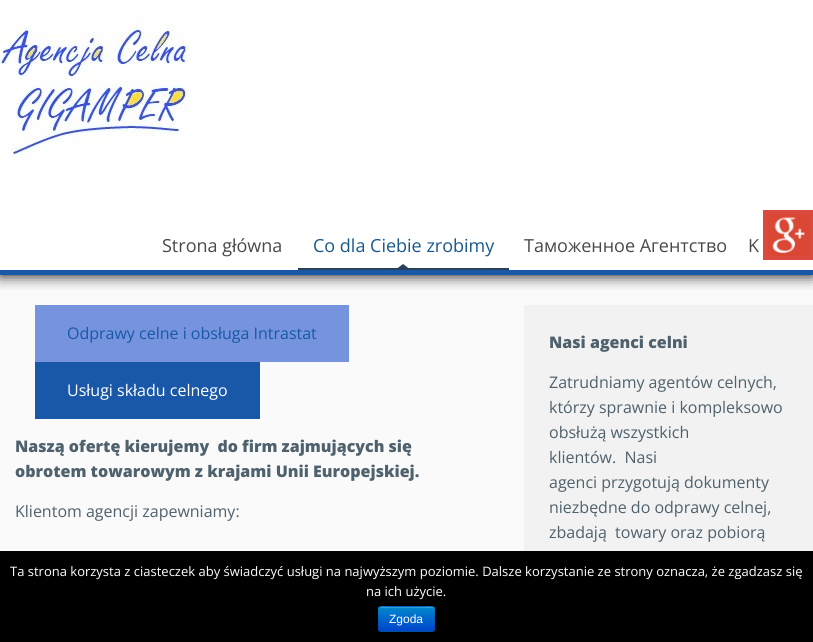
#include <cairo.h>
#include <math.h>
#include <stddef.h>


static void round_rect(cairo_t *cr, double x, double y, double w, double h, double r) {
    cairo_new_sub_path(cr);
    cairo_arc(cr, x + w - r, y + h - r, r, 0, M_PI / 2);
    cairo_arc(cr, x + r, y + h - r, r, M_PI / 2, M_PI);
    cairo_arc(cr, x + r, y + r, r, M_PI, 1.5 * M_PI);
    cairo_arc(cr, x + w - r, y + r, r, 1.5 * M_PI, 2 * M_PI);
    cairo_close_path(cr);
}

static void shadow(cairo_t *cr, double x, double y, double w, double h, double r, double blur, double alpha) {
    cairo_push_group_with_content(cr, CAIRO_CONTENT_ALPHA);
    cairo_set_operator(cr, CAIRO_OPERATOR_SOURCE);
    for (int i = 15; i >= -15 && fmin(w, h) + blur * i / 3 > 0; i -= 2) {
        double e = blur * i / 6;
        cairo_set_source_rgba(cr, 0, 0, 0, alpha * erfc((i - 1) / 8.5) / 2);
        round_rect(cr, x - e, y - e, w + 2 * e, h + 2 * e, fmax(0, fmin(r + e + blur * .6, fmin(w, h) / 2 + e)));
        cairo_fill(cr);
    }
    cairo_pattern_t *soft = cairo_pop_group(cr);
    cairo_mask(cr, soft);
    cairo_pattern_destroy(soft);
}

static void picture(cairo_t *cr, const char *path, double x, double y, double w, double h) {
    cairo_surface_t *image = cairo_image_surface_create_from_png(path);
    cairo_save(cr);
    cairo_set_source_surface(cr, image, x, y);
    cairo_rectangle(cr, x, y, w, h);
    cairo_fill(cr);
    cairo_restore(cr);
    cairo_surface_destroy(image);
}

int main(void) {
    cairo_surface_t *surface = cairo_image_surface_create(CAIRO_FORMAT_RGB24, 813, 642);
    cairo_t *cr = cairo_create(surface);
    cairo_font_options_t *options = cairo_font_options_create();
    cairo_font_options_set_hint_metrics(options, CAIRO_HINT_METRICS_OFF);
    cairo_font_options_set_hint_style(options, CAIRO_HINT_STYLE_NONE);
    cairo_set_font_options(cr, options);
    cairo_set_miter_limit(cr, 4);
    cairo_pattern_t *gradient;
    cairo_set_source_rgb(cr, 1, 1, 1);
    cairo_paint(cr);
    cairo_set_source_rgb(cr, 0.98, 0.98, 0.98);
    cairo_rectangle(cr, 0, 275, 813, 276);
    cairo_fill(cr);
    cairo_save(cr);
    cairo_rectangle(cr, 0, 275, 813, 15);
    cairo_clip(cr);
    cairo_set_source_rgb(cr, 0, 0, 0);
    shadow(cr, 0, 0, 813, 275, 0, 7.5, 1);
    cairo_restore(cr);
    cairo_set_source_rgb(cr, 0.098, 0.345, 0.659);
    cairo_rectangle(cr, 0, 270, 813, 5);
    cairo_fill(cr);
    picture(cr, "img1.png", 0, 16, 190, 144);
    cairo_select_font_face(cr, "Open Sans", CAIRO_FONT_SLANT_NORMAL, CAIRO_FONT_WEIGHT_NORMAL);
    cairo_set_font_size(cr, 18);
    cairo_set_source_rgb(cr, 0.286, 0.286, 0.286);
    cairo_move_to(cr, 162, 252);
    cairo_show_text(cr, "Strona główna");
    cairo_set_source_rgb(cr, 0.098, 0.345, 0.549);
    cairo_move_to(cr, 313, 252);
    cairo_show_text(cr, "Co dla Ciebie zrobimy");
    cairo_set_source_rgb(cr, 0.157, 0.259, 0.349);
    cairo_new_path(cr);
    cairo_move_to(cr, 411, 270);
    cairo_line_to(cr, 395, 270);
    cairo_line_to(cr, 403, 264);
    cairo_close_path(cr);
    cairo_fill(cr);
    cairo_rectangle(cr, 298, 268, 211, 2);
    cairo_fill(cr);
    cairo_set_source_rgb(cr, 0.286, 0.286, 0.286);
    cairo_move_to(cr, 524, 252);
    cairo_show_text(cr, "Таможенное Агентство");
    cairo_move_to(cr, 748, 252);
    cairo_show_text(cr, "K");
    cairo_set_source_rgb(cr, 0.859, 0.29, 0.247);
    cairo_rectangle(cr, 763, 210, 50, 50);
    cairo_fill(cr);
    picture(cr, "img2.png", 767, 214, 42, 42);
    cairo_set_source_rgb(cr, 0.459, 0.58, 0.867);
    cairo_rectangle(cr, 35, 305, 314, 57);
    cairo_fill(cr);
    cairo_set_font_size(cr, 16);
    cairo_set_source_rgb(cr, 0.098, 0.345, 0.659);
    cairo_move_to(cr, 67, 339);
    cairo_show_text(cr, "Odprawy celne i obsługa Intrastat");
    cairo_rectangle(cr, 35, 362, 225, 57);
    cairo_fill(cr);
    cairo_set_source_rgb(cr, 1, 1, 1);
    cairo_move_to(cr, 67, 396);
    cairo_show_text(cr, "Usługi składu celnego");
    cairo_select_font_face(cr, "Open Sans ExtraBold", CAIRO_FONT_SLANT_NORMAL, CAIRO_FONT_WEIGHT_NORMAL);
    cairo_set_source_rgb(cr, 0.306, 0.38, 0.424);
    cairo_move_to(cr, 15, 452);
    cairo_show_text(cr, "Naszą ofertę kierujemy  do firm zajmujących się");
    cairo_move_to(cr, 15, 477);
    cairo_show_text(cr, "obrotem towarowym z krajami Unii Europejskiej.");
    cairo_select_font_face(cr, "Open Sans", CAIRO_FONT_SLANT_NORMAL, CAIRO_FONT_WEIGHT_NORMAL);
    cairo_move_to(cr, 15, 517);
    cairo_show_text(cr, "Klientom agencji zapewniamy:");
    cairo_set_source_rgb(cr, 0.949, 0.949, 0.949);
    cairo_rectangle(cr, 524, 305, 289, 246);
    cairo_fill(cr);
    cairo_select_font_face(cr, "Open Sans ExtraBold", CAIRO_FONT_SLANT_NORMAL, CAIRO_FONT_WEIGHT_NORMAL);
    cairo_set_source_rgb(cr, 0.306, 0.38, 0.424);
    cairo_move_to(cr, 549, 348);
    cairo_show_text(cr, "Nasi agenci celni");
    cairo_select_font_face(cr, "Open Sans", CAIRO_FONT_SLANT_NORMAL, CAIRO_FONT_WEIGHT_NORMAL);
    cairo_move_to(cr, 549, 388);
    cairo_show_text(cr, "Zatrudniamy agentów celnych,");
    cairo_move_to(cr, 549, 413);
    cairo_show_text(cr, "którzy sprawnie i kompleksowo");
    cairo_move_to(cr, 549, 438);
    cairo_show_text(cr, "obsłużą wszystkich");
    cairo_move_to(cr, 549, 463);
    cairo_show_text(cr, "klientów.  Nasi");
    cairo_move_to(cr, 549, 488);
    cairo_show_text(cr, "agenci przygotują dokumenty");
    cairo_move_to(cr, 549, 513);
    cairo_show_text(cr, "niezbędne do odprawy celnej,");
    cairo_move_to(cr, 549, 538);
    cairo_show_text(cr, "zbadają  towary oraz pobiorą");
    cairo_set_source_rgb(cr, 0, 0, 0);
    cairo_rectangle(cr, 0, 551, 813, 91);
    cairo_fill(cr);
    cairo_set_font_size(cr, 13);
    cairo_set_source_rgb(cr, 1, 1, 1);
    cairo_move_to(cr, 10, 576);
    cairo_show_text(cr, "Ta strona korzysta z ciasteczek aby świadczyć usługi na najwyższym poziomie. Dalsze korzystanie ze strony oznacza, że zgadzasz się");
    cairo_move_to(cr, 366, 596);
    cairo_show_text(cr, "na ich użycie.");
    cairo_set_source_rgb(cr, 0, 0.427, 0.8);
    round_rect(cr, 378, 606, 57, 26, 3);
    cairo_fill(cr);
    cairo_save(cr);
    round_rect(cr, 378, 606, 57, 26, 3);
    cairo_clip(cr);
    gradient = cairo_pattern_create_linear(407, 607, 407, 631);
    cairo_pattern_add_color_stop_rgba(gradient, 0, 0, 0.533, 0.8, 1);
    cairo_pattern_add_color_stop_rgba(gradient, 1, 0, 0.267, 0.8, 1);
    cairo_set_source(cr, gradient);
    cairo_pattern_destroy(gradient);
    cairo_rectangle(cr, 378, 607, 57, 24);
    cairo_fill(cr);
    cairo_restore(cr);
    cairo_set_source_rgb(cr, 0.2, 0.624, 0.839);
    cairo_new_path(cr);
    cairo_move_to(cr, 381, 608);
    cairo_line_to(cr, 432, 608);
    cairo_curve_to(cr, 433, 608, 434, 609, 434, 610);
    cairo_curve_to(cr, 434, 605, 427, 607, 424, 607);
    cairo_line_to(cr, 390, 607);
    cairo_curve_to(cr, 386, 607, 379, 605, 379, 610);
    cairo_curve_to(cr, 379, 609, 380, 608, 381, 608);
    cairo_close_path(cr);
    cairo_fill(cr);
    cairo_new_path(cr);
    cairo_move_to(cr, 434, 631);
    cairo_line_to(cr, 432, 631.5);
    cairo_line_to(cr, 381, 631.5);
    cairo_line_to(cr, 379, 631);
    cairo_set_source_rgba(cr, 0, 0, 0, 0.25);
    cairo_set_line_width(cr, 1);
    cairo_stroke(cr);
    cairo_new_path(cr);
    cairo_move_to(cr, 379, 631);
    cairo_curve_to(cr, 377.5, 629, 378.5, 621.5, 378.5, 619);
    cairo_curve_to(cr, 378.5, 605, 376, 606.5, 389.5, 606.5);
    cairo_line_to(cr, 423.5, 606.5);
    cairo_curve_to(cr, 437, 606.5, 434.5, 605, 434.5, 619);
    cairo_curve_to(cr, 434.5, 621.5, 435.5, 629, 434, 631);
    cairo_set_source_rgba(cr, 0, 0, 0, 0.1);
    cairo_stroke(cr);
    cairo_select_font_face(cr, "Liberation Sans", CAIRO_FONT_SLANT_NORMAL, CAIRO_FONT_WEIGHT_NORMAL);
    cairo_set_font_size(cr, 12);
    cairo_set_source_rgb(cr, 1, 1, 1);
    cairo_move_to(cr, 389, 623);
    cairo_show_text(cr, "Zgoda");
    cairo_surface_write_to_png(surface, "page.png");
    cairo_font_options_destroy(options);
    cairo_destroy(cr);
    cairo_surface_destroy(surface);
    return 0;
}
